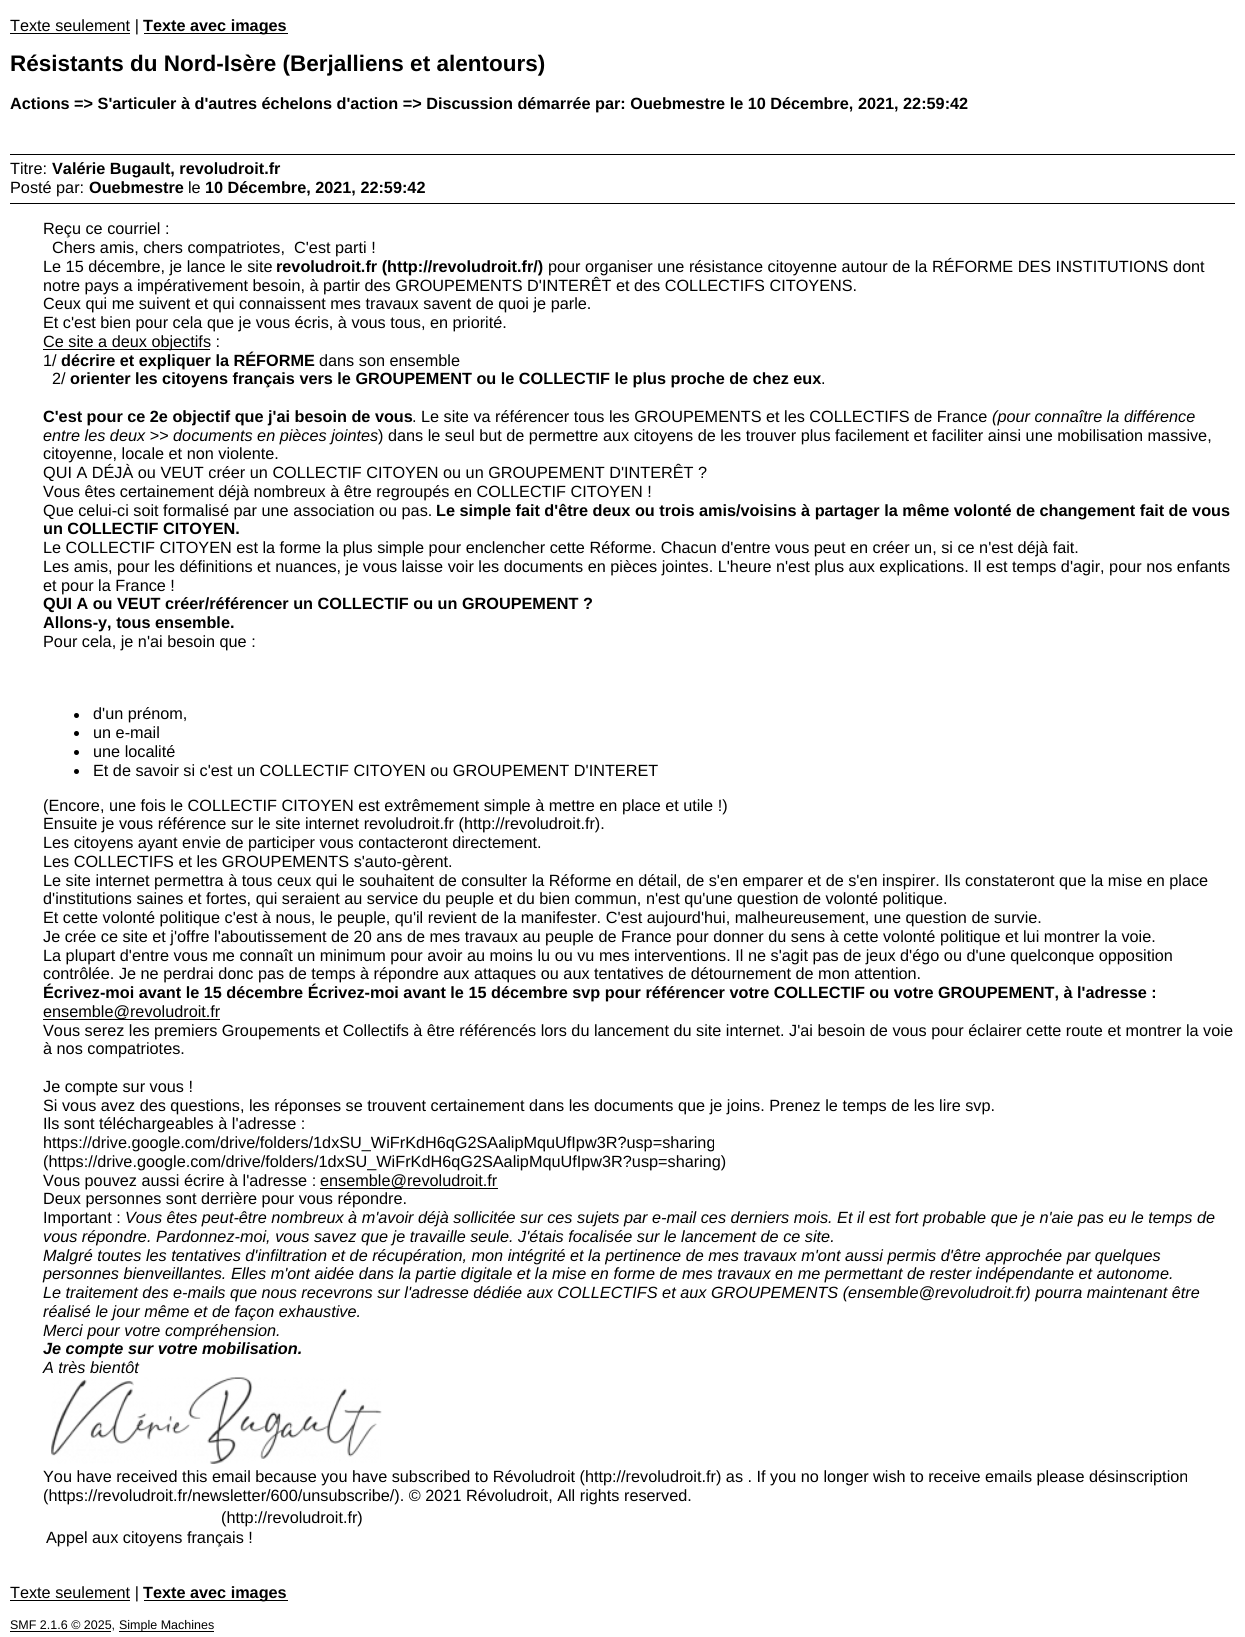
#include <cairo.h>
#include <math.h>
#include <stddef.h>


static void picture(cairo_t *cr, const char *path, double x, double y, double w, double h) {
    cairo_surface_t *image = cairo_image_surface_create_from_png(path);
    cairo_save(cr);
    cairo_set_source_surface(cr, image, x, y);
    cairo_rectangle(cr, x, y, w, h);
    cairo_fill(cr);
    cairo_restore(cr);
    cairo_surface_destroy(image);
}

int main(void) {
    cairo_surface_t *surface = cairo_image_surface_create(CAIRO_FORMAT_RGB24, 1245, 1637);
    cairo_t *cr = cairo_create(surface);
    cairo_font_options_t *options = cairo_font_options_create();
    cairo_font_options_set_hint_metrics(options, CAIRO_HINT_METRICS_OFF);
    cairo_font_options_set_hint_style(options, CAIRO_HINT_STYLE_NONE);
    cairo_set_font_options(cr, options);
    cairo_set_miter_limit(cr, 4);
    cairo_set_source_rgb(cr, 1, 1, 1);
    cairo_paint(cr);
    cairo_set_source_rgb(cr, 0, 0, 0);
    cairo_rectangle(cr, 10, 33, 120, 1);
    cairo_fill(cr);
    cairo_select_font_face(cr, "Liberation Sans", CAIRO_FONT_SLANT_NORMAL, CAIRO_FONT_WEIGHT_NORMAL);
    cairo_set_font_size(cr, 16.25);
    cairo_move_to(cr, 10, 31);
    cairo_show_text(cr, "Texte seulement |");
    cairo_rectangle(cr, 144, 33, 144, 1);
    cairo_fill(cr);
    cairo_select_font_face(cr, "Liberation Sans", CAIRO_FONT_SLANT_NORMAL, CAIRO_FONT_WEIGHT_BOLD);
    cairo_move_to(cr, 143, 31);
    cairo_show_text(cr, "Texte avec images");
    cairo_set_font_size(cr, 22.5);
    cairo_move_to(cr, 10, 71);
    cairo_show_text(cr, "Résistants du Nord-Isère (Berjalliens et alentours)");
    cairo_set_font_size(cr, 16.25);
    cairo_move_to(cr, 10, 109);
    cairo_show_text(cr, "Actions => S'articuler à d'autres échelons d'action => Discussion démarrée par: Ouebmestre le 10 Décembre, 2021, 22:59:42");
    cairo_rectangle(cr, 10, 154, 1225, 1);
    cairo_fill(cr);
    cairo_rectangle(cr, 10, 203, 1225, 1);
    cairo_fill(cr);
    cairo_select_font_face(cr, "Liberation Sans", CAIRO_FONT_SLANT_NORMAL, CAIRO_FONT_WEIGHT_NORMAL);
    cairo_move_to(cr, 10, 174);
    cairo_show_text(cr, "Titre:");
    cairo_select_font_face(cr, "Liberation Sans", CAIRO_FONT_SLANT_NORMAL, CAIRO_FONT_WEIGHT_BOLD);
    cairo_move_to(cr, 52, 174);
    cairo_show_text(cr, "Valérie Bugault, revoludroit.fr");
    cairo_select_font_face(cr, "Liberation Sans", CAIRO_FONT_SLANT_NORMAL, CAIRO_FONT_WEIGHT_NORMAL);
    cairo_move_to(cr, 10, 193);
    cairo_show_text(cr, "Posté par:");
    cairo_select_font_face(cr, "Liberation Sans", CAIRO_FONT_SLANT_NORMAL, CAIRO_FONT_WEIGHT_BOLD);
    cairo_move_to(cr, 89, 193);
    cairo_show_text(cr, "Ouebmestre");
    cairo_select_font_face(cr, "Liberation Sans", CAIRO_FONT_SLANT_NORMAL, CAIRO_FONT_WEIGHT_NORMAL);
    cairo_move_to(cr, 188, 193);
    cairo_show_text(cr, "le");
    cairo_select_font_face(cr, "Liberation Sans", CAIRO_FONT_SLANT_NORMAL, CAIRO_FONT_WEIGHT_BOLD);
    cairo_move_to(cr, 205, 193);
    cairo_show_text(cr, "10 Décembre, 2021, 22:59:42");
    cairo_select_font_face(cr, "Liberation Sans", CAIRO_FONT_SLANT_NORMAL, CAIRO_FONT_WEIGHT_NORMAL);
    cairo_move_to(cr, 43, 234);
    cairo_show_text(cr, "Reçu ce courriel :");
    cairo_move_to(cr, 52, 253);
    cairo_show_text(cr, "Chers amis, chers compatriotes,  C'est parti !");
    cairo_move_to(cr, 43, 272);
    cairo_show_text(cr, "Le 15 décembre, je lance le site");
    cairo_select_font_face(cr, "Liberation Sans", CAIRO_FONT_SLANT_NORMAL, CAIRO_FONT_WEIGHT_BOLD);
    cairo_move_to(cr, 276, 272);
    cairo_show_text(cr, "revoludroit.fr (http://revoludroit.fr/)");
    cairo_select_font_face(cr, "Liberation Sans", CAIRO_FONT_SLANT_NORMAL, CAIRO_FONT_WEIGHT_NORMAL);
    cairo_move_to(cr, 548, 272);
    cairo_show_text(cr, "pour organiser une résistance citoyenne autour de la RÉFORME DES INSTITUTIONS dont");
    cairo_move_to(cr, 43, 291);
    cairo_show_text(cr, "notre pays a impérativement besoin, à partir des GROUPEMENTS D'INTERÊT et des COLLECTIFS CITOYENS.");
    cairo_move_to(cr, 43, 309);
    cairo_show_text(cr, "Ceux qui me suivent et qui connaissent mes travaux savent de quoi je parle.");
    cairo_move_to(cr, 43, 328);
    cairo_show_text(cr, "Et c'est bien pour cela que je vous écris, à vous tous, en priorité.");
    cairo_rectangle(cr, 43, 349, 167, 1);
    cairo_fill(cr);
    cairo_move_to(cr, 43, 347);
    cairo_show_text(cr, "Ce site a deux objectifs :");
    cairo_move_to(cr, 43, 366);
    cairo_show_text(cr, "1/");
    cairo_select_font_face(cr, "Liberation Sans", CAIRO_FONT_SLANT_NORMAL, CAIRO_FONT_WEIGHT_BOLD);
    cairo_move_to(cr, 61, 366);
    cairo_show_text(cr, "décrire et expliquer la RÉFORME");
    cairo_select_font_face(cr, "Liberation Sans", CAIRO_FONT_SLANT_NORMAL, CAIRO_FONT_WEIGHT_NORMAL);
    cairo_move_to(cr, 319, 366);
    cairo_show_text(cr, "dans son ensemble");
    cairo_move_to(cr, 52, 384);
    cairo_show_text(cr, "2/");
    cairo_select_font_face(cr, "Liberation Sans", CAIRO_FONT_SLANT_NORMAL, CAIRO_FONT_WEIGHT_BOLD);
    cairo_move_to(cr, 70, 384);
    cairo_show_text(cr, "orienter les citoyens français vers le GROUPEMENT ou le COLLECTIF le plus proche de chez eux");
    cairo_select_font_face(cr, "Liberation Sans", CAIRO_FONT_SLANT_NORMAL, CAIRO_FONT_WEIGHT_NORMAL);
    cairo_move_to(cr, 821, 384);
    cairo_show_text(cr, ".");
    cairo_select_font_face(cr, "Liberation Sans", CAIRO_FONT_SLANT_NORMAL, CAIRO_FONT_WEIGHT_BOLD);
    cairo_move_to(cr, 43, 422);
    cairo_show_text(cr, "C'est pour ce 2e objectif que j'ai besoin de vous");
    cairo_select_font_face(cr, "Liberation Sans", CAIRO_FONT_SLANT_NORMAL, CAIRO_FONT_WEIGHT_NORMAL);
    cairo_move_to(cr, 412, 422);
    cairo_show_text(cr, ". Le site va référencer tous les GROUPEMENTS et les COLLECTIFS de France");
    cairo_select_font_face(cr, "Liberation Sans", CAIRO_FONT_SLANT_ITALIC, CAIRO_FONT_WEIGHT_NORMAL);
    cairo_move_to(cr, 992, 422);
    cairo_show_text(cr, "(pour connaître la différence");
    cairo_move_to(cr, 43, 441);
    cairo_show_text(cr, "entre les deux >> documents en pièces jointes");
    cairo_select_font_face(cr, "Liberation Sans", CAIRO_FONT_SLANT_NORMAL, CAIRO_FONT_WEIGHT_NORMAL);
    cairo_move_to(cr, 378, 441);
    cairo_show_text(cr, ") dans le seul but de permettre aux citoyens de les trouver plus facilement et faciliter ainsi une mobilisation massive,");
    cairo_move_to(cr, 43, 459);
    cairo_show_text(cr, "citoyenne, locale et non violente.");
    cairo_move_to(cr, 43, 478);
    cairo_show_text(cr, "QUI A DÉJÀ ou VEUT créer un COLLECTIF CITOYEN ou un GROUPEMENT D'INTERÊT ?");
    cairo_move_to(cr, 43, 497);
    cairo_show_text(cr, "Vous êtes certainement déjà nombreux à être regroupés en COLLECTIF CITOYEN !");
    cairo_move_to(cr, 43, 516);
    cairo_show_text(cr, "Que celui-ci soit formalisé par une association ou pas.");
    cairo_select_font_face(cr, "Liberation Sans", CAIRO_FONT_SLANT_NORMAL, CAIRO_FONT_WEIGHT_BOLD);
    cairo_move_to(cr, 436, 516);
    cairo_show_text(cr, "Le simple fait d'être deux ou trois amis/voisins à partager la même volonté de changement fait de vous");
    cairo_move_to(cr, 43, 534);
    cairo_show_text(cr, "un COLLECTIF CITOYEN.");
    cairo_select_font_face(cr, "Liberation Sans", CAIRO_FONT_SLANT_NORMAL, CAIRO_FONT_WEIGHT_NORMAL);
    cairo_move_to(cr, 43, 553);
    cairo_show_text(cr, "Le COLLECTIF CITOYEN est la forme la plus simple pour enclencher cette Réforme. Chacun d'entre vous peut en créer un, si ce n'est déjà fait.");
    cairo_move_to(cr, 43, 572);
    cairo_show_text(cr, "Les amis, pour les définitions et nuances, je vous laisse voir les documents en pièces jointes. L'heure n'est plus aux explications. Il est temps d'agir, pour nos enfants");
    cairo_move_to(cr, 43, 591);
    cairo_show_text(cr, "et pour la France !");
    cairo_select_font_face(cr, "Liberation Sans", CAIRO_FONT_SLANT_NORMAL, CAIRO_FONT_WEIGHT_BOLD);
    cairo_move_to(cr, 43, 609);
    cairo_show_text(cr, "QUI A ou VEUT créer/référencer un COLLECTIF ou un GROUPEMENT ?");
    cairo_move_to(cr, 43, 628);
    cairo_show_text(cr, "Allons-y, tous ensemble.");
    cairo_select_font_face(cr, "Liberation Sans", CAIRO_FONT_SLANT_NORMAL, CAIRO_FONT_WEIGHT_NORMAL);
    cairo_move_to(cr, 43, 647);
    cairo_show_text(cr, "Pour cela, je n'ai besoin que :");
    cairo_new_path(cr);
    cairo_arc(cr, 76.5, 715.5, 2.5, 0, 2 * M_PI);
    cairo_fill(cr);
    cairo_move_to(cr, 93, 719);
    cairo_show_text(cr, "d'un prénom,");
    cairo_new_path(cr);
    cairo_arc(cr, 76.5, 733.5, 2.5, 0, 2 * M_PI);
    cairo_fill(cr);
    cairo_move_to(cr, 93, 738);
    cairo_show_text(cr, "un e-mail");
    cairo_new_path(cr);
    cairo_arc(cr, 76.5, 752.5, 2.5, 0, 2 * M_PI);
    cairo_fill(cr);
    cairo_move_to(cr, 93, 757);
    cairo_show_text(cr, "une localité");
    cairo_new_path(cr);
    cairo_arc(cr, 76.5, 771.5, 2.5, 0, 2 * M_PI);
    cairo_fill(cr);
    cairo_move_to(cr, 93, 776);
    cairo_show_text(cr, "Et de savoir si c'est un COLLECTIF CITOYEN ou GROUPEMENT D'INTERET");
    cairo_move_to(cr, 43, 811);
    cairo_show_text(cr, "(Encore, une fois le COLLECTIF CITOYEN est extrêmement simple à mettre en place et utile !)");
    cairo_move_to(cr, 43, 829);
    cairo_show_text(cr, "Ensuite je vous référence sur le site internet revoludroit.fr (http://revoludroit.fr).");
    cairo_move_to(cr, 43, 848);
    cairo_show_text(cr, "Les citoyens ayant envie de participer vous contacteront directement.");
    cairo_move_to(cr, 43, 867);
    cairo_show_text(cr, "Les COLLECTIFS et les GROUPEMENTS s'auto-gèrent.");
    cairo_move_to(cr, 43, 886);
    cairo_show_text(cr, "Le site internet permettra à tous ceux qui le souhaitent de consulter la Réforme en détail, de s'en emparer et de s'en inspirer. Ils constateront que la mise en place");
    cairo_move_to(cr, 43, 904);
    cairo_show_text(cr, "d'institutions saines et fortes, qui seraient au service du peuple et du bien commun, n'est qu'une question de volonté politique.");
    cairo_move_to(cr, 43, 923);
    cairo_show_text(cr, "Et cette volonté politique c'est à nous, le peuple, qu'il revient de la manifester. C'est aujourd'hui, malheureusement, une question de survie.");
    cairo_move_to(cr, 43, 942);
    cairo_show_text(cr, "Je crée ce site et j'offre l'aboutissement de 20 ans de mes travaux au peuple de France pour donner du sens à cette volonté politique et lui montrer la voie.");
    cairo_move_to(cr, 43, 961);
    cairo_show_text(cr, "La plupart d'entre vous me connaît un minimum pour avoir au moins lu ou vu mes interventions. Il ne s'agit pas de jeux d'égo ou d'une quelconque opposition");
    cairo_move_to(cr, 43, 979);
    cairo_show_text(cr, "contrôlée. Je ne perdrai donc pas de temps à répondre aux attaques ou aux tentatives de détournement de mon attention.");
    cairo_select_font_face(cr, "Liberation Sans", CAIRO_FONT_SLANT_NORMAL, CAIRO_FONT_WEIGHT_BOLD);
    cairo_move_to(cr, 43, 998);
    cairo_show_text(cr, "Écrivez-moi avant le 15 décembre Écrivez-moi avant le 15 décembre svp pour référencer votre COLLECTIF ou votre GROUPEMENT, à l'adresse :");
    cairo_rectangle(cr, 43, 1019, 177, 1);
    cairo_fill(cr);
    cairo_select_font_face(cr, "Liberation Sans", CAIRO_FONT_SLANT_NORMAL, CAIRO_FONT_WEIGHT_NORMAL);
    cairo_move_to(cr, 43, 1017);
    cairo_show_text(cr, "ensemble@revoludroit.fr");
    cairo_move_to(cr, 43, 1036);
    cairo_show_text(cr, "Vous serez les premiers Groupements et Collectifs à être référencés lors du lancement du site internet. J'ai besoin de vous pour éclairer cette route et montrer la voie");
    cairo_move_to(cr, 43, 1054);
    cairo_show_text(cr, "à nos compatriotes.");
    cairo_move_to(cr, 43, 1092);
    cairo_show_text(cr, "Je compte sur vous !");
    cairo_move_to(cr, 43, 1111);
    cairo_show_text(cr, "Si vous avez des questions, les réponses se trouvent certainement dans les documents que je joins. Prenez le temps de les lire svp.");
    cairo_move_to(cr, 43, 1129);
    cairo_show_text(cr, "Ils sont téléchargeables à l'adresse :");
    cairo_move_to(cr, 43, 1148);
    cairo_show_text(cr, "https://drive.google.com/drive/folders/1dxSU_WiFrKdH6qG2SAalipMquUfIpw3R?usp=sharing");
    cairo_move_to(cr, 43, 1167);
    cairo_show_text(cr, "(https://drive.google.com/drive/folders/1dxSU_WiFrKdH6qG2SAalipMquUfIpw3R?usp=sharing)");
    cairo_move_to(cr, 43, 1186);
    cairo_show_text(cr, "Vous pouvez aussi écrire à l'adresse :");
    cairo_rectangle(cr, 320, 1188, 178, 1);
    cairo_fill(cr);
    cairo_move_to(cr, 320, 1186);
    cairo_show_text(cr, "ensemble@revoludroit.fr");
    cairo_move_to(cr, 43, 1204);
    cairo_show_text(cr, "Deux personnes sont derrière pour vous répondre.");
    cairo_move_to(cr, 43, 1223);
    cairo_show_text(cr, "Important :");
    cairo_select_font_face(cr, "Liberation Sans", CAIRO_FONT_SLANT_ITALIC, CAIRO_FONT_WEIGHT_NORMAL);
    cairo_move_to(cr, 125, 1223);
    cairo_show_text(cr, "Vous êtes peut-être nombreux à m'avoir déjà sollicitée sur ces sujets par e-mail ces derniers mois. Et il est fort probable que je n'aie pas eu le temps de");
    cairo_move_to(cr, 43, 1242);
    cairo_show_text(cr, "vous répondre. Pardonnez-moi, vous savez que je travaille seule. J'étais focalisée sur le lancement de ce site.");
    cairo_move_to(cr, 43, 1261);
    cairo_show_text(cr, "Malgré toutes les tentatives d'infiltration et de récupération, mon intégrité et la pertinence de mes travaux m'ont aussi permis d'être approchée par quelques");
    cairo_move_to(cr, 43, 1279);
    cairo_show_text(cr, "personnes bienveillantes. Elles m'ont aidée dans la partie digitale et la mise en forme de mes travaux en me permettant de rester indépendante et autonome.");
    cairo_move_to(cr, 43, 1298);
    cairo_show_text(cr, "Le traitement des e-mails que nous recevrons sur l'adresse dédiée aux COLLECTIFS et aux GROUPEMENTS (ensemble@revoludroit.fr) pourra maintenant être");
    cairo_move_to(cr, 43, 1317);
    cairo_show_text(cr, "réalisé le jour même et de façon exhaustive.");
    cairo_move_to(cr, 43, 1336);
    cairo_show_text(cr, "Merci pour votre compréhension.");
    cairo_select_font_face(cr, "Liberation Sans", CAIRO_FONT_SLANT_ITALIC, CAIRO_FONT_WEIGHT_BOLD);
    cairo_move_to(cr, 43, 1354);
    cairo_show_text(cr, "Je compte sur votre mobilisation.");
    cairo_select_font_face(cr, "Liberation Sans", CAIRO_FONT_SLANT_ITALIC, CAIRO_FONT_WEIGHT_NORMAL);
    cairo_move_to(cr, 43, 1373);
    cairo_show_text(cr, "A très bientôt");
    picture(cr, "img1.png", 51, 1377, 331, 87);
    cairo_select_font_face(cr, "Liberation Sans", CAIRO_FONT_SLANT_NORMAL, CAIRO_FONT_WEIGHT_NORMAL);
    cairo_move_to(cr, 43, 1482);
    cairo_show_text(cr, "You have received this email because you have subscribed to Révoludroit (http://revoludroit.fr) as . If you no longer wish to receive emails please désinscription");
    cairo_move_to(cr, 43, 1501);
    cairo_show_text(cr, "(https://revoludroit.fr/newsletter/600/unsubscribe/). © 2021 Révoludroit, All rights reserved.");
    cairo_move_to(cr, 221, 1523);
    cairo_show_text(cr, "(http://revoludroit.fr)");
    cairo_move_to(cr, 46, 1543);
    cairo_show_text(cr, "Appel aux citoyens français !");
    cairo_rectangle(cr, 10, 1600, 120, 1);
    cairo_fill(cr);
    cairo_move_to(cr, 10, 1598);
    cairo_show_text(cr, "Texte seulement |");
    cairo_rectangle(cr, 144, 1600, 144, 1);
    cairo_fill(cr);
    cairo_select_font_face(cr, "Liberation Sans", CAIRO_FONT_SLANT_NORMAL, CAIRO_FONT_WEIGHT_BOLD);
    cairo_move_to(cr, 143, 1598);
    cairo_show_text(cr, "Texte avec images");
    cairo_select_font_face(cr, "Liberation Sans", CAIRO_FONT_SLANT_NORMAL, CAIRO_FONT_WEIGHT_NORMAL);
    cairo_set_font_size(cr, 12.5);
    cairo_move_to(cr, 10, 1629);
    cairo_show_text(cr, "SMF 2.1.6 © 2025,");
    cairo_rectangle(cr, 10, 1631, 101, 1);
    cairo_fill(cr);
    cairo_rectangle(cr, 119, 1631, 95, 1);
    cairo_fill(cr);
    cairo_move_to(cr, 119, 1629);
    cairo_show_text(cr, "Simple Machines");
    cairo_surface_write_to_png(surface, "page.png");
    cairo_font_options_destroy(options);
    cairo_destroy(cr);
    cairo_surface_destroy(surface);
    return 0;
}
